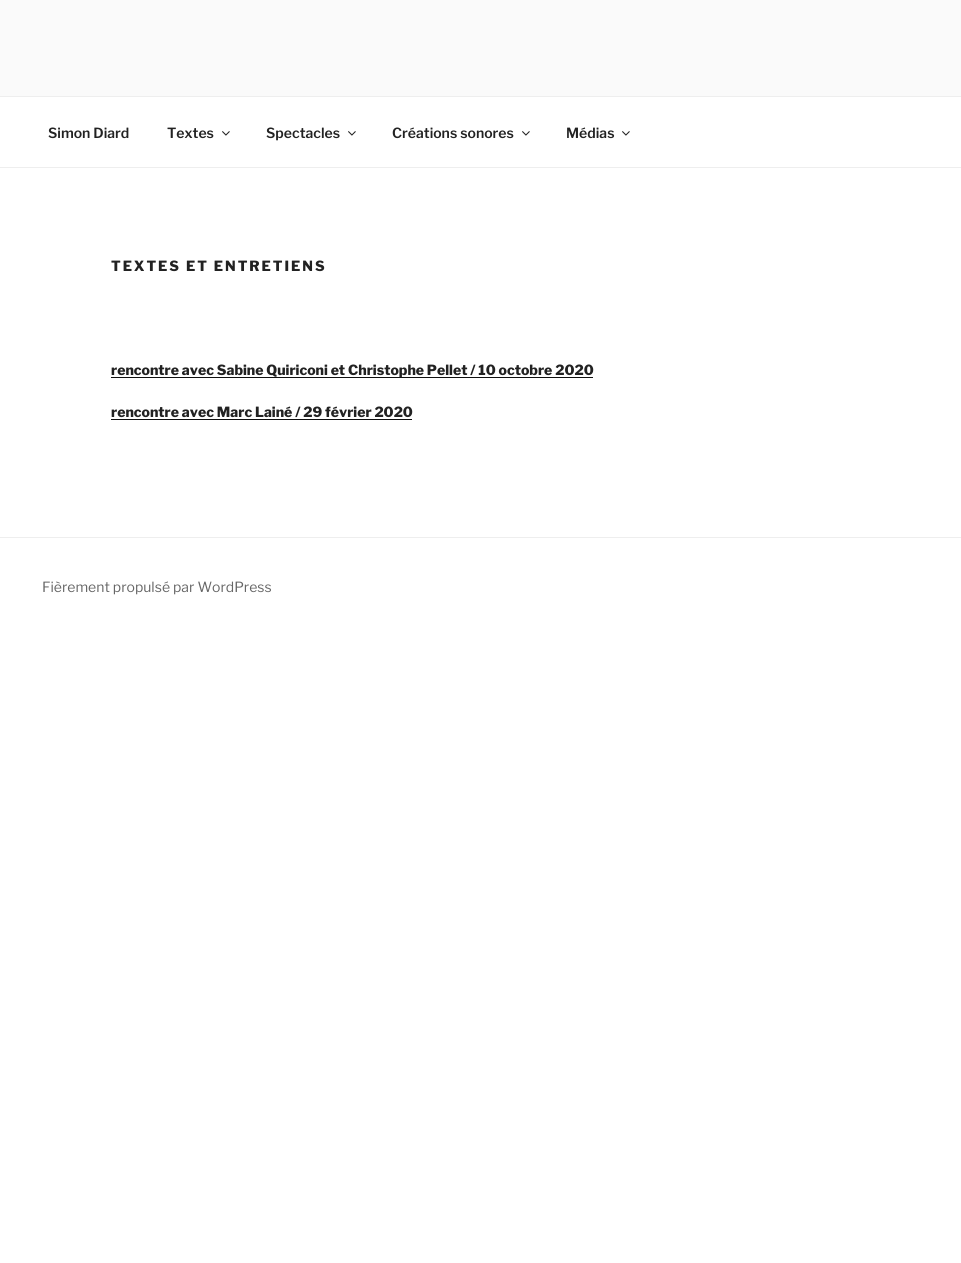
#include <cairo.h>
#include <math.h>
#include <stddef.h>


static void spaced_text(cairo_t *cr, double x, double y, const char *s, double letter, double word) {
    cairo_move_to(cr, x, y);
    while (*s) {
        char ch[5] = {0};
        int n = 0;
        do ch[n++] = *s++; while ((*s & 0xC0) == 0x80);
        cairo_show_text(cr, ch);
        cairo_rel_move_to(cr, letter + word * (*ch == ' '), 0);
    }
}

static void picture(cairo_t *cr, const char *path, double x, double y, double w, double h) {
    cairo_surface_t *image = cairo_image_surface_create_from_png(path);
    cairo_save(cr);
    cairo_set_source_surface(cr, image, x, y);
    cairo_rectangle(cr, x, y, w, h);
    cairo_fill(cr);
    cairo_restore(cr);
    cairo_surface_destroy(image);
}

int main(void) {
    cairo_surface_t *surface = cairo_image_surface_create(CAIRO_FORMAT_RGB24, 961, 1263);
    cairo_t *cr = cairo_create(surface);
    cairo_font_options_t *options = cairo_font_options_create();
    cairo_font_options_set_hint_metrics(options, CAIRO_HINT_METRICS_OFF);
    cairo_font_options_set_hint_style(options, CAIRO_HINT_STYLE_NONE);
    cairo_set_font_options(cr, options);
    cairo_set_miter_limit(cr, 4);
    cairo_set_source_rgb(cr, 1, 1, 1);
    cairo_paint(cr);
    cairo_set_source_rgb(cr, 0.98, 0.98, 0.98);
    cairo_rectangle(cr, 0, 0, 961, 96);
    cairo_fill(cr);
    cairo_set_source_rgb(cr, 0.933, 0.933, 0.933);
    cairo_rectangle(cr, 0, 96, 961, 1);
    cairo_fill(cr);
    cairo_rectangle(cr, 0, 167, 961, 1);
    cairo_fill(cr);
    cairo_select_font_face(cr, "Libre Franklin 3 Thin", CAIRO_FONT_SLANT_NORMAL, CAIRO_FONT_WEIGHT_NORMAL);
    cairo_set_font_size(cr, 14);
    cairo_set_source_rgb(cr, 0.133, 0.133, 0.133);
    cairo_move_to(cr, 48, 138);
    cairo_show_text(cr, "Simon Diard");
    cairo_move_to(cr, 167, 138);
    cairo_show_text(cr, "Textes");
    picture(cr, "img1.png", 222, 131, 8, 5);
    cairo_move_to(cr, 266, 138);
    cairo_show_text(cr, "Spectacles");
    picture(cr, "img1.png", 348, 131, 8, 5);
    cairo_move_to(cr, 392, 138);
    cairo_show_text(cr, "Créations sonores");
    picture(cr, "img1.png", 522, 131, 8, 5);
    cairo_move_to(cr, 566, 138);
    cairo_show_text(cr, "Médias");
    picture(cr, "img1.png", 622, 131, 8, 5);
    cairo_select_font_face(cr, "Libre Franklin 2 Thin", CAIRO_FONT_SLANT_NORMAL, CAIRO_FONT_WEIGHT_NORMAL);
    spaced_text(cr, 111, 271, "TEXTES ET ENTRETIENS", 2, 0);
    cairo_set_source_rgb(cr, 0.059, 0.059, 0.059);
    cairo_rectangle(cr, 111, 377, 482, 1);
    cairo_fill(cr);
    cairo_set_source_rgb(cr, 0.133, 0.133, 0.133);
    cairo_move_to(cr, 111, 375);
    cairo_show_text(cr, "rencontre avec Sabine Quiriconi et Christophe Pellet / 10 octobre 2020");
    cairo_move_to(cr, 111, 417);
    cairo_show_text(cr, "rencontre avec Marc Lainé / 29 février 2020");
    cairo_set_source_rgb(cr, 0.059, 0.059, 0.059);
    cairo_rectangle(cr, 111, 419, 301, 1);
    cairo_fill(cr);
    cairo_set_source_rgb(cr, 0.933, 0.933, 0.933);
    cairo_rectangle(cr, 0, 537, 961, 1);
    cairo_fill(cr);
    cairo_select_font_face(cr, "Libre Franklin Thin", CAIRO_FONT_SLANT_NORMAL, CAIRO_FONT_WEIGHT_NORMAL);
    cairo_set_source_rgb(cr, 0.4, 0.4, 0.4);
    cairo_move_to(cr, 42, 592);
    cairo_show_text(cr, "Fièrement propulsé par WordPress");
    cairo_surface_write_to_png(surface, "page.png");
    cairo_font_options_destroy(options);
    cairo_destroy(cr);
    cairo_surface_destroy(surface);
    return 0;
}
